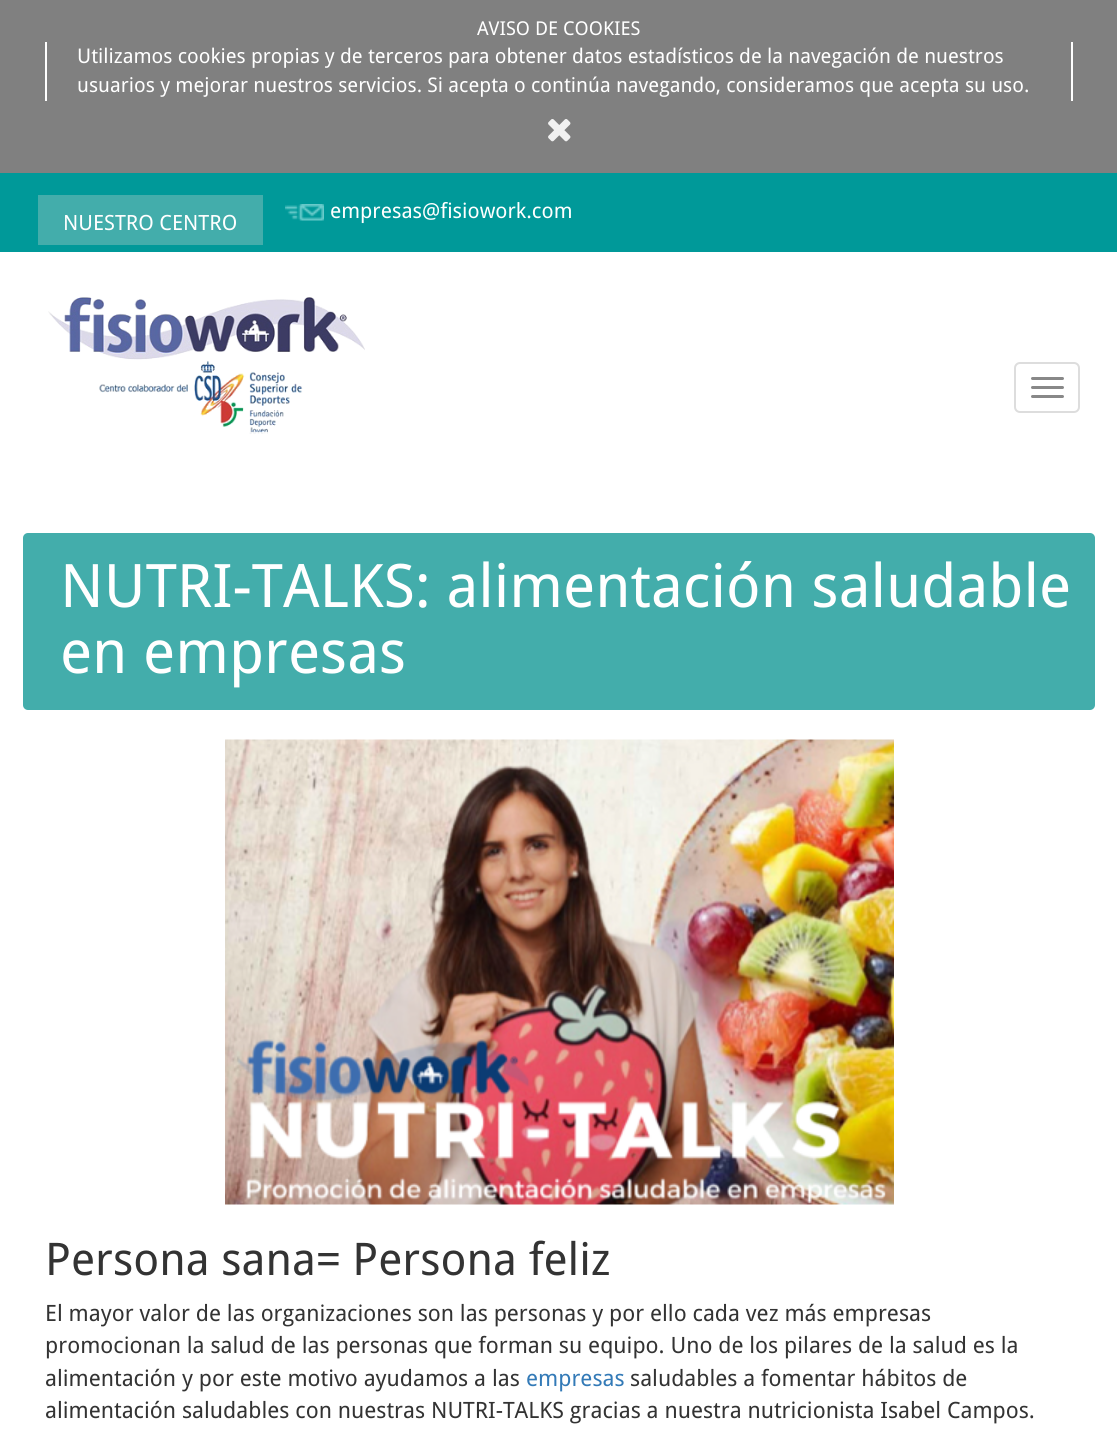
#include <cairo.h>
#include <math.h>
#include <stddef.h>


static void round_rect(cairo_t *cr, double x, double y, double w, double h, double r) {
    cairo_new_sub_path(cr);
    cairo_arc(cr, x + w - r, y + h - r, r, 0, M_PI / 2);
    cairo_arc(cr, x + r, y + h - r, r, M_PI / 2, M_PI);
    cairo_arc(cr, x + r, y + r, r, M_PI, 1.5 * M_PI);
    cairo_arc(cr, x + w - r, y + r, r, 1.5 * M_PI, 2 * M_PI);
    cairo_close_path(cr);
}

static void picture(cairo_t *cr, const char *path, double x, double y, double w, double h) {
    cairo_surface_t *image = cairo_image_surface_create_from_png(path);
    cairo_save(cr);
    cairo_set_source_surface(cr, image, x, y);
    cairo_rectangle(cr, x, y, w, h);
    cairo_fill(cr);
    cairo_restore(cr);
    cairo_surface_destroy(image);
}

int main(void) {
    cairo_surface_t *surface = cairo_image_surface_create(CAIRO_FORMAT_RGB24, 1117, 1433);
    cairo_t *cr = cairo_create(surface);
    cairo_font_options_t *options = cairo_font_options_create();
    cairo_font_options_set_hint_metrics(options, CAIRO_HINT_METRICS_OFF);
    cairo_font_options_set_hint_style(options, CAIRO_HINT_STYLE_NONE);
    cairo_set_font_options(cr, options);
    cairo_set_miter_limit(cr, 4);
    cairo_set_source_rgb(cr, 1, 1, 1);
    cairo_paint(cr);
    cairo_set_source_rgb(cr, 0.502, 0.502, 0.502);
    cairo_rectangle(cr, 0, 0, 1117, 173);
    cairo_fill(cr);
    cairo_select_font_face(cr, "Droid Sans", CAIRO_FONT_SLANT_NORMAL, CAIRO_FONT_WEIGHT_NORMAL);
    cairo_set_font_size(cr, 19.1);
    cairo_set_source_rgb(cr, 1, 1, 1);
    cairo_move_to(cr, 477, 35);
    cairo_show_text(cr, "AVISO DE COOKIES");
    cairo_rectangle(cr, 1071, 42, 2, 59);
    cairo_fill(cr);
    cairo_rectangle(cr, 45, 42, 2, 59);
    cairo_fill(cr);
    cairo_set_font_size(cr, 20.25);
    cairo_move_to(cr, 77, 63);
    cairo_show_text(cr, "Utilizamos cookies propias y de terceros para obtener datos estadísticos de la navegación de nuestros");
    cairo_move_to(cr, 77, 92);
    cairo_show_text(cr, "usuarios y mejorar nuestros servicios. Si acepta o continúa navegando, consideramos que acepta su uso.");
    picture(cr, "img1.png", 548, 119, 23, 23);
    cairo_set_source_rgb(cr, 0, 0.6, 0.6);
    cairo_rectangle(cr, 0, 173, 1117, 79);
    cairo_fill(cr);
    cairo_set_source_rgb(cr, 0.263, 0.678, 0.671);
    cairo_rectangle(cr, 38, 195, 225, 50);
    cairo_fill(cr);
    cairo_set_font_size(cr, 21);
    cairo_set_source_rgb(cr, 1, 1, 1);
    cairo_move_to(cr, 63, 230);
    cairo_show_text(cr, "NUESTRO CENTRO");
    picture(cr, "img2.png", 285, 204, 39, 17);
    cairo_move_to(cr, 330, 218);
    cairo_show_text(cr, "empresas@fisiowork.com");
    picture(cr, "img3.png", 48, 297, 317, 138);
    cairo_set_source_rgba(cr, 1, 1, 1, 0.85);
    cairo_rectangle(cr, 249, 432, 19, 3);
    cairo_fill(cr);
    round_rect(cr, 1015, 363, 64, 49, 5);
    cairo_set_source_rgb(cr, 0.867, 0.867, 0.867);
    cairo_stroke(cr);
    cairo_set_source_rgb(cr, 0.533, 0.533, 0.533);
    round_rect(cr, 1031, 377, 33, 3, 1.5);
    cairo_fill(cr);
    round_rect(cr, 1031, 386, 33, 3, 1.5);
    cairo_fill(cr);
    round_rect(cr, 1031, 395, 33, 3, 1.5);
    cairo_fill(cr);
    cairo_set_source_rgb(cr, 0.263, 0.678, 0.671);
    round_rect(cr, 23, 533, 1072, 177, 5);
    cairo_fill(cr);
    cairo_set_font_size(cr, 60);
    cairo_set_source_rgb(cr, 1, 1, 1);
    cairo_move_to(cr, 60, 607);
    cairo_show_text(cr, "NUTRI-TALKS: alimentación saludable");
    cairo_move_to(cr, 60, 673);
    cairo_show_text(cr, "en empresas");
    picture(cr, "img4.png", 225, 739, 669, 466);
    cairo_set_font_size(cr, 45);
    cairo_set_source_rgb(cr, 0.2, 0.2, 0.2);
    cairo_move_to(cr, 45, 1275);
    cairo_show_text(cr, "Persona sana= Persona feliz");
    cairo_set_font_size(cr, 22.5);
    cairo_move_to(cr, 45, 1321);
    cairo_show_text(cr, "El mayor valor de las organizaciones son las personas y por ello cada vez más empresas");
    cairo_move_to(cr, 45, 1353);
    cairo_show_text(cr, "promocionan la salud de las personas que forman su equipo. Uno de los pilares de la salud es la");
    cairo_move_to(cr, 45, 1386);
    cairo_show_text(cr, "alimentación y por este motivo ayudamos a las");
    cairo_set_source_rgb(cr, 0.2, 0.478, 0.718);
    cairo_move_to(cr, 526, 1386);
    cairo_show_text(cr, "empresas");
    cairo_set_source_rgb(cr, 0.2, 0.2, 0.2);
    cairo_move_to(cr, 630, 1386);
    cairo_show_text(cr, "saludables a fomentar hábitos de");
    cairo_move_to(cr, 45, 1418);
    cairo_show_text(cr, "alimentación saludables con nuestras NUTRI-TALKS gracias a nuestra nutricionista Isabel Campos.");
    cairo_surface_write_to_png(surface, "page.png");
    cairo_font_options_destroy(options);
    cairo_destroy(cr);
    cairo_surface_destroy(surface);
    return 0;
}
